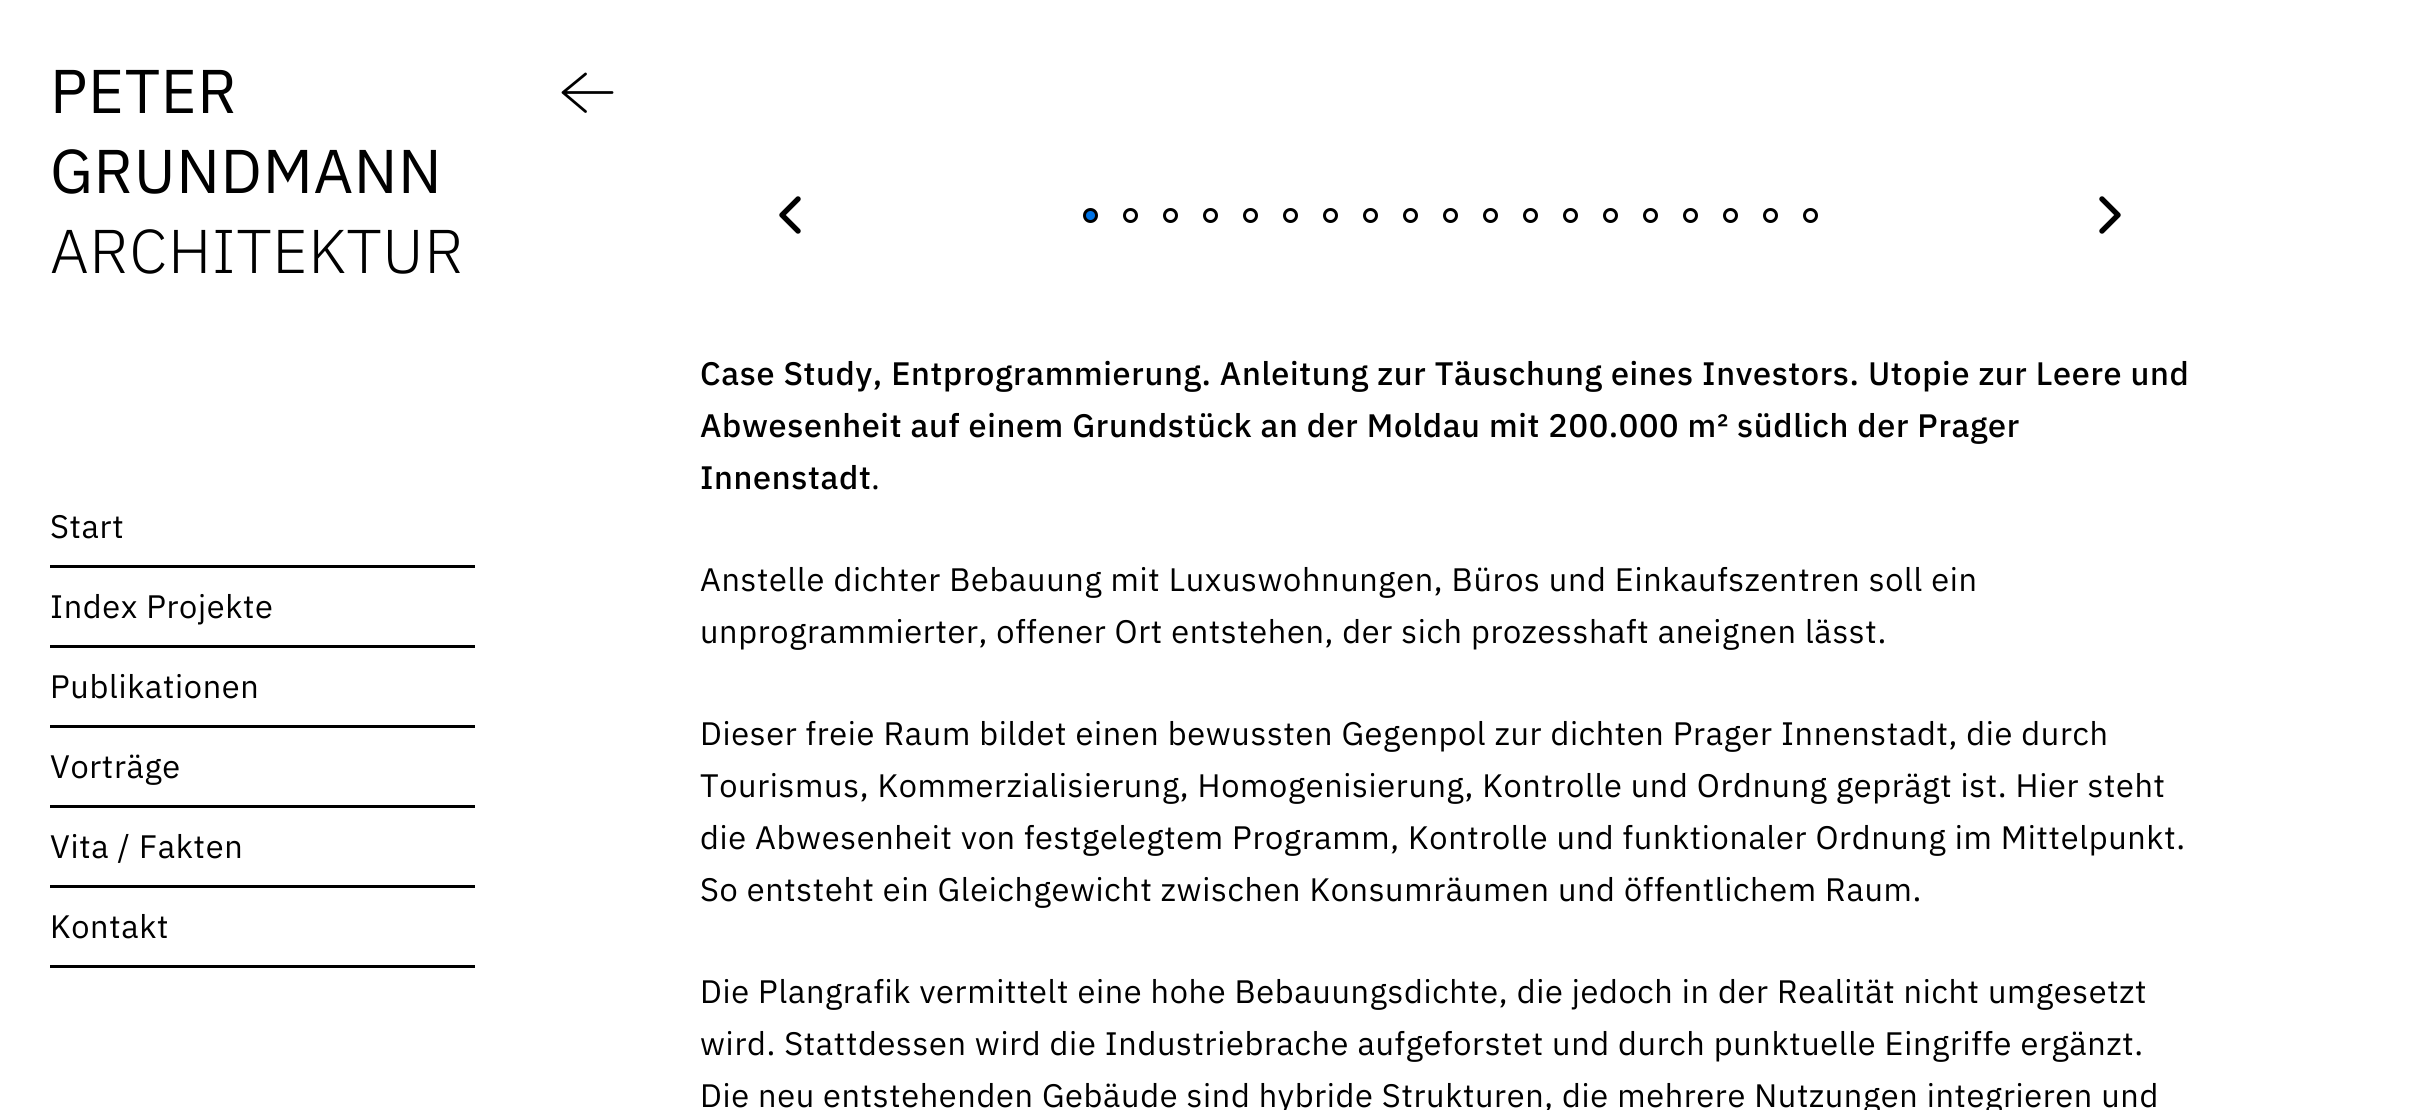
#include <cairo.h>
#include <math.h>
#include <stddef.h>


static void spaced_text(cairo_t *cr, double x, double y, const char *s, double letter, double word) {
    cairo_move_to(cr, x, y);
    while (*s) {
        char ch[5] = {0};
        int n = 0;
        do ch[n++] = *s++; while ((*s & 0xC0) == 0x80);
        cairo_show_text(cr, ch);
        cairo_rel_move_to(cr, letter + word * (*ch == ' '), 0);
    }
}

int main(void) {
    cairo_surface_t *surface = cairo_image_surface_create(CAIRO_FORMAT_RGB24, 2436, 1110);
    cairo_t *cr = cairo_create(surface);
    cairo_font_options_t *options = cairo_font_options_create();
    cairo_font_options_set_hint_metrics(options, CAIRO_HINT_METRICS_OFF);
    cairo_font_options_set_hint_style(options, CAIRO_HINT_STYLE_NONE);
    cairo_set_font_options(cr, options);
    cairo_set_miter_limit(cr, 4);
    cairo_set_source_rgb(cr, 1, 1, 1);
    cairo_paint(cr);
    cairo_select_font_face(cr, "IBM Plex Sans", CAIRO_FONT_SLANT_NORMAL, CAIRO_FONT_WEIGHT_NORMAL);
    cairo_set_font_size(cr, 61.75);
    cairo_set_source_rgb(cr, 0, 0, 0);
    spaced_text(cr, 50, 113, "PETER", 0.65, 0);
    spaced_text(cr, 50, 193, "GRUNDMANN", 0.65, 0);
    cairo_select_font_face(cr, "IBM Plex Sans Light", CAIRO_FONT_SLANT_NORMAL, CAIRO_FONT_WEIGHT_NORMAL);
    spaced_text(cr, 50, 273, "ARCHITEKTUR", 0.65, 0);
    cairo_rectangle(cr, 50, 565, 425, 3);
    cairo_fill(cr);
    cairo_select_font_face(cr, "IBM Plex Sans", CAIRO_FONT_SLANT_NORMAL, CAIRO_FONT_WEIGHT_NORMAL);
    cairo_set_font_size(cr, 32.5);
    spaced_text(cr, 50, 538, "Start", 0.65, 0);
    cairo_rectangle(cr, 50, 645, 425, 3);
    cairo_fill(cr);
    spaced_text(cr, 50, 618, "Index Projekte", 0.65, 0);
    cairo_rectangle(cr, 50, 725, 425, 3);
    cairo_fill(cr);
    spaced_text(cr, 50, 698, "Publikationen", 0.65, 0);
    cairo_rectangle(cr, 50, 805, 425, 3);
    cairo_fill(cr);
    spaced_text(cr, 50, 778, "Vorträge", 0.65, 0);
    cairo_rectangle(cr, 50, 885, 425, 3);
    cairo_fill(cr);
    spaced_text(cr, 50, 858, "Vita / Fakten", 0.65, 0);
    cairo_rectangle(cr, 50, 965, 425, 3);
    cairo_fill(cr);
    spaced_text(cr, 50, 938, "Kontakt", 0.65, 0);
    cairo_new_path(cr);
    cairo_move_to(cr, 585.5, 74);
    cairo_line_to(cr, 563, 92.5);
    cairo_line_to(cr, 612, 92.5);
    cairo_move_to(cr, 585.5, 111.5);
    cairo_line_to(cr, 563, 92.5);
    cairo_set_line_width(cr, 2.8);
    cairo_set_line_cap(cr, CAIRO_LINE_CAP_ROUND);
    cairo_set_line_join(cr, CAIRO_LINE_JOIN_ROUND);
    cairo_stroke(cr);
    cairo_new_path(cr);
    cairo_move_to(cr, 798, 231);
    cairo_line_to(cr, 782, 215);
    cairo_line_to(cr, 798, 199);
    cairo_set_line_width(cr, 5.4);
    cairo_stroke(cr);
    cairo_set_source_rgb(cr, 0, 0.451, 0.902);
    cairo_arc(cr, 1090.5, 215.5, 6, 0, 2 * M_PI);
    cairo_fill_preserve(cr);
    cairo_set_source_rgb(cr, 0, 0, 0);
    cairo_set_line_width(cr, 3);
    cairo_set_line_cap(cr, CAIRO_LINE_CAP_BUTT);
    cairo_set_line_join(cr, CAIRO_LINE_JOIN_MITER);
    cairo_stroke(cr);
    cairo_arc(cr, 1130.5, 215.5, 6, 0, 2 * M_PI);
    cairo_stroke(cr);
    cairo_arc(cr, 1170.5, 215.5, 6, 0, 2 * M_PI);
    cairo_stroke(cr);
    cairo_arc(cr, 1210.5, 215.5, 6, 0, 2 * M_PI);
    cairo_stroke(cr);
    cairo_arc(cr, 1250.5, 215.5, 6, 0, 2 * M_PI);
    cairo_stroke(cr);
    cairo_arc(cr, 1290.5, 215.5, 6, 0, 2 * M_PI);
    cairo_stroke(cr);
    cairo_arc(cr, 1330.5, 215.5, 6, 0, 2 * M_PI);
    cairo_stroke(cr);
    cairo_arc(cr, 1370.5, 215.5, 6, 0, 2 * M_PI);
    cairo_stroke(cr);
    cairo_arc(cr, 1410.5, 215.5, 6, 0, 2 * M_PI);
    cairo_stroke(cr);
    cairo_arc(cr, 1450.5, 215.5, 6, 0, 2 * M_PI);
    cairo_stroke(cr);
    cairo_arc(cr, 1490.5, 215.5, 6, 0, 2 * M_PI);
    cairo_stroke(cr);
    cairo_arc(cr, 1530.5, 215.5, 6, 0, 2 * M_PI);
    cairo_stroke(cr);
    cairo_arc(cr, 1570.5, 215.5, 6, 0, 2 * M_PI);
    cairo_stroke(cr);
    cairo_arc(cr, 1610.5, 215.5, 6, 0, 2 * M_PI);
    cairo_stroke(cr);
    cairo_arc(cr, 1650.5, 215.5, 6, 0, 2 * M_PI);
    cairo_stroke(cr);
    cairo_arc(cr, 1690.5, 215.5, 6, 0, 2 * M_PI);
    cairo_stroke(cr);
    cairo_arc(cr, 1730.5, 215.5, 6, 0, 2 * M_PI);
    cairo_stroke(cr);
    cairo_arc(cr, 1770.5, 215.5, 6, 0, 2 * M_PI);
    cairo_stroke(cr);
    cairo_arc(cr, 1810.5, 215.5, 6, 0, 2 * M_PI);
    cairo_stroke(cr);
    cairo_new_path(cr);
    cairo_move_to(cr, 2102, 199);
    cairo_line_to(cr, 2118, 215);
    cairo_line_to(cr, 2102, 231);
    cairo_set_line_width(cr, 5.4);
    cairo_set_line_cap(cr, CAIRO_LINE_CAP_ROUND);
    cairo_set_line_join(cr, CAIRO_LINE_JOIN_ROUND);
    cairo_stroke(cr);
    cairo_select_font_face(cr, "IBM Plex Sans Medium", CAIRO_FONT_SLANT_NORMAL, CAIRO_FONT_WEIGHT_NORMAL);
    spaced_text(cr, 700, 385, "Case Study, Entprogrammierung. Anleitung zur Täuschung eines Investors. Utopie zur Leere und", 0.65, 0);
    spaced_text(cr, 700, 437, "Abwesenheit auf einem Grundstück an der Moldau mit 200.000 m² südlich der Prager", 0.65, 0);
    spaced_text(cr, 700, 489, "Innenstadt", 0.65, 0);
    cairo_select_font_face(cr, "IBM Plex Sans", CAIRO_FONT_SLANT_NORMAL, CAIRO_FONT_WEIGHT_NORMAL);
    spaced_text(cr, 871, 489, ".", 0.65, 0);
    spaced_text(cr, 700, 591, "Anstelle dichter Bebauung mit Luxuswohnungen, Büros und Einkaufszentren soll ein", 0.65, 0);
    spaced_text(cr, 700, 643, "unprogrammierter, offener Ort entstehen, der sich prozesshaft aneignen lässt.", 0.65, 0);
    spaced_text(cr, 700, 745, "Dieser freie Raum bildet einen bewussten Gegenpol zur dichten Prager Innenstadt, die durch", 0.65, 0);
    spaced_text(cr, 700, 797, "Tourismus, Kommerzialisierung, Homogenisierung, Kontrolle und Ordnung geprägt ist. Hier steht", 0.65, 0);
    spaced_text(cr, 700, 849, "die Abwesenheit von festgelegtem Programm, Kontrolle und funktionaler Ordnung im Mittelpunkt.", 0.65, 0);
    spaced_text(cr, 700, 901, "So entsteht ein Gleichgewicht zwischen Konsumräumen und öffentlichem Raum.", 0.65, 0);
    spaced_text(cr, 700, 1003, "Die Plangrafik vermittelt eine hohe Bebauungsdichte, die jedoch in der Realität nicht umgesetzt", 0.65, 0);
    spaced_text(cr, 700, 1055, "wird. Stattdessen wird die Industriebrache aufgeforstet und durch punktuelle Eingriffe ergänzt.", 0.65, 0);
    spaced_text(cr, 700, 1107, "Die neu entstehenden Gebäude sind hybride Strukturen, die mehrere Nutzungen integrieren und", 0.65, 0);
    cairo_surface_write_to_png(surface, "page.png");
    cairo_font_options_destroy(options);
    cairo_destroy(cr);
    cairo_surface_destroy(surface);
    return 0;
}
